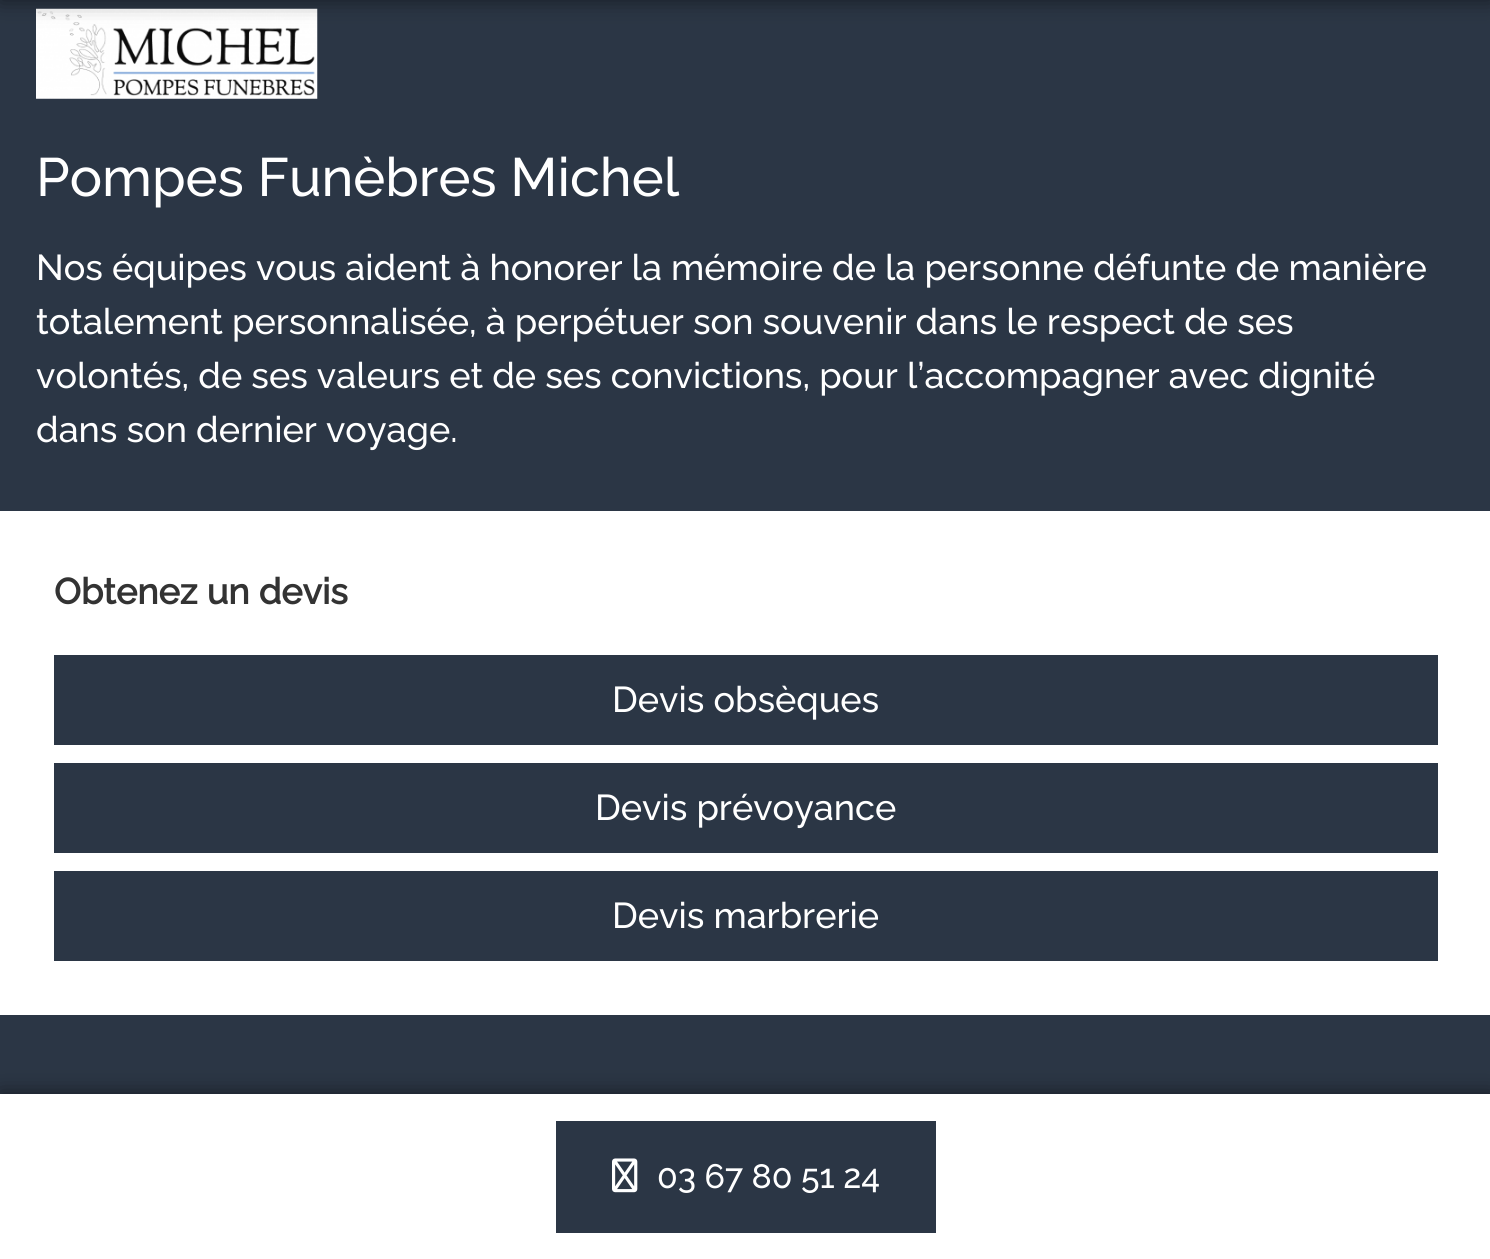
#include <cairo.h>
#include <math.h>
#include <stddef.h>


static void round_rect(cairo_t *cr, double x, double y, double w, double h, double r) {
    cairo_new_sub_path(cr);
    cairo_arc(cr, x + w - r, y + h - r, r, 0, M_PI / 2);
    cairo_arc(cr, x + r, y + h - r, r, M_PI / 2, M_PI);
    cairo_arc(cr, x + r, y + r, r, M_PI, 1.5 * M_PI);
    cairo_arc(cr, x + w - r, y + r, r, 1.5 * M_PI, 2 * M_PI);
    cairo_close_path(cr);
}

static void shadow(cairo_t *cr, double x, double y, double w, double h, double r, double blur, double alpha) {
    cairo_push_group_with_content(cr, CAIRO_CONTENT_ALPHA);
    cairo_set_operator(cr, CAIRO_OPERATOR_SOURCE);
    for (int i = 15; i >= -15 && fmin(w, h) + blur * i / 3 > 0; i -= 2) {
        double e = blur * i / 6;
        cairo_set_source_rgba(cr, 0, 0, 0, alpha * erfc((i - 1) / 8.5) / 2);
        round_rect(cr, x - e, y - e, w + 2 * e, h + 2 * e, fmax(0, fmin(r + e + blur * .6, fmin(w, h) / 2 + e)));
        cairo_fill(cr);
    }
    cairo_pattern_t *soft = cairo_pop_group(cr);
    cairo_mask(cr, soft);
    cairo_pattern_destroy(soft);
}

static void picture(cairo_t *cr, const char *path, double x, double y, double w, double h) {
    cairo_surface_t *image = cairo_image_surface_create_from_png(path);
    cairo_save(cr);
    cairo_set_source_surface(cr, image, x, y);
    cairo_rectangle(cr, x, y, w, h);
    cairo_fill(cr);
    cairo_restore(cr);
    cairo_surface_destroy(image);
}

int main(void) {
    cairo_surface_t *surface = cairo_image_surface_create(CAIRO_FORMAT_RGB24, 1490, 1259);
    cairo_t *cr = cairo_create(surface);
    cairo_font_options_t *options = cairo_font_options_create();
    cairo_font_options_set_hint_metrics(options, CAIRO_HINT_METRICS_OFF);
    cairo_font_options_set_hint_style(options, CAIRO_HINT_STYLE_NONE);
    cairo_set_font_options(cr, options);
    cairo_set_miter_limit(cr, 4);
    cairo_set_source_rgb(cr, 0.169, 0.212, 0.271);
    cairo_paint(cr);
    picture(cr, "img1.png", 36, 8, 282, 91);
    cairo_select_font_face(cr, "Raleway Thin", CAIRO_FONT_SLANT_NORMAL, CAIRO_FONT_WEIGHT_NORMAL);
    cairo_set_font_size(cr, 54);
    cairo_set_source_rgb(cr, 1, 1, 1);
    cairo_move_to(cr, 36, 196);
    cairo_show_text(cr, "Pompes Funèbres Michel");
    cairo_set_font_size(cr, 36);
    cairo_move_to(cr, 36, 280);
    cairo_show_text(cr, "Nos équipes vous aident à honorer la mémoire de la personne défunte de manière");
    cairo_move_to(cr, 36, 334);
    cairo_show_text(cr, "totalement personnalisée, à perpétuer son souvenir dans le respect de ses");
    cairo_move_to(cr, 36, 388);
    cairo_show_text(cr, "volontés, de ses valeurs et de ses convictions, pour l’accompagner avec dignité");
    cairo_move_to(cr, 36, 442);
    cairo_show_text(cr, "dans son dernier voyage.");
    cairo_rectangle(cr, 0, 511, 1490, 504);
    cairo_fill(cr);
    cairo_select_font_face(cr, "Raleway", CAIRO_FONT_SLANT_NORMAL, CAIRO_FONT_WEIGHT_BOLD);
    cairo_set_source_rgb(cr, 0.2, 0.2, 0.2);
    cairo_move_to(cr, 54, 604);
    cairo_show_text(cr, "Obtenez un devis");
    cairo_set_source_rgb(cr, 0.169, 0.212, 0.271);
    cairo_rectangle(cr, 54, 655, 1384, 90);
    cairo_fill(cr);
    cairo_select_font_face(cr, "Raleway Thin", CAIRO_FONT_SLANT_NORMAL, CAIRO_FONT_WEIGHT_NORMAL);
    cairo_set_source_rgb(cr, 1, 1, 1);
    cairo_move_to(cr, 612, 712);
    cairo_show_text(cr, "Devis obsèques");
    cairo_set_source_rgb(cr, 0.169, 0.212, 0.271);
    cairo_rectangle(cr, 54, 763, 1384, 90);
    cairo_fill(cr);
    cairo_set_source_rgb(cr, 1, 1, 1);
    cairo_move_to(cr, 595, 820);
    cairo_show_text(cr, "Devis prévoyance");
    cairo_set_source_rgb(cr, 0.169, 0.212, 0.271);
    cairo_rectangle(cr, 54, 871, 1384, 90);
    cairo_fill(cr);
    cairo_set_source_rgb(cr, 1, 1, 1);
    cairo_move_to(cr, 612, 928);
    cairo_show_text(cr, "Devis marbrerie");
    cairo_set_source_rgb(cr, 0, 0, 0);
    shadow(cr, 0, -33, 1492, 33, 0, 11, 0.5);
    shadow(cr, 0, 1094, 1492, 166, 0, 11, 0.5);
    cairo_set_source_rgb(cr, 1, 1, 1);
    cairo_rectangle(cr, 0, 1094, 1490, 165);
    cairo_fill(cr);
    cairo_set_source_rgb(cr, 0.169, 0.212, 0.271);
    cairo_rectangle(cr, 556, 1121, 380, 112);
    cairo_fill(cr);
    picture(cr, "img2.png", 612, 1158, 26, 35);
    cairo_set_font_size(cr, 33.75);
    cairo_set_source_rgb(cr, 1, 1, 1);
    cairo_move_to(cr, 657, 1188);
    cairo_show_text(cr, "03 67 80 51 24");
    cairo_surface_write_to_png(surface, "page.png");
    cairo_font_options_destroy(options);
    cairo_destroy(cr);
    cairo_surface_destroy(surface);
    return 0;
}
